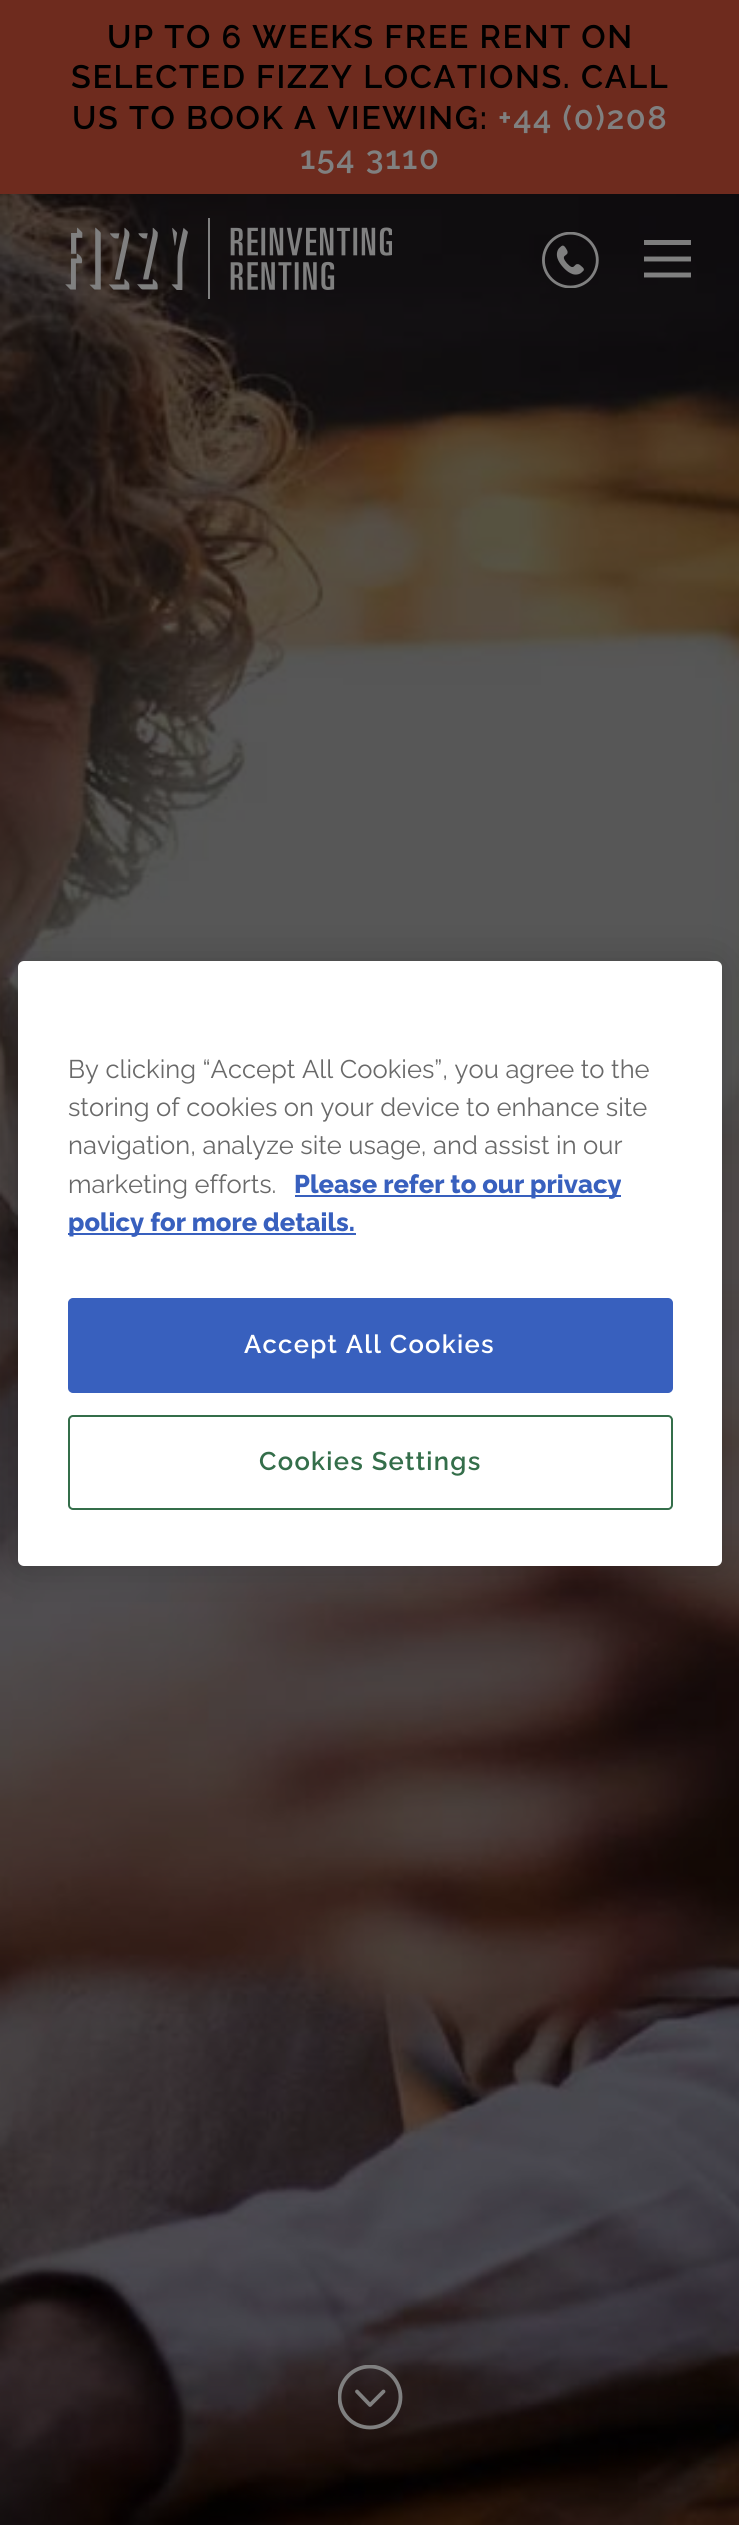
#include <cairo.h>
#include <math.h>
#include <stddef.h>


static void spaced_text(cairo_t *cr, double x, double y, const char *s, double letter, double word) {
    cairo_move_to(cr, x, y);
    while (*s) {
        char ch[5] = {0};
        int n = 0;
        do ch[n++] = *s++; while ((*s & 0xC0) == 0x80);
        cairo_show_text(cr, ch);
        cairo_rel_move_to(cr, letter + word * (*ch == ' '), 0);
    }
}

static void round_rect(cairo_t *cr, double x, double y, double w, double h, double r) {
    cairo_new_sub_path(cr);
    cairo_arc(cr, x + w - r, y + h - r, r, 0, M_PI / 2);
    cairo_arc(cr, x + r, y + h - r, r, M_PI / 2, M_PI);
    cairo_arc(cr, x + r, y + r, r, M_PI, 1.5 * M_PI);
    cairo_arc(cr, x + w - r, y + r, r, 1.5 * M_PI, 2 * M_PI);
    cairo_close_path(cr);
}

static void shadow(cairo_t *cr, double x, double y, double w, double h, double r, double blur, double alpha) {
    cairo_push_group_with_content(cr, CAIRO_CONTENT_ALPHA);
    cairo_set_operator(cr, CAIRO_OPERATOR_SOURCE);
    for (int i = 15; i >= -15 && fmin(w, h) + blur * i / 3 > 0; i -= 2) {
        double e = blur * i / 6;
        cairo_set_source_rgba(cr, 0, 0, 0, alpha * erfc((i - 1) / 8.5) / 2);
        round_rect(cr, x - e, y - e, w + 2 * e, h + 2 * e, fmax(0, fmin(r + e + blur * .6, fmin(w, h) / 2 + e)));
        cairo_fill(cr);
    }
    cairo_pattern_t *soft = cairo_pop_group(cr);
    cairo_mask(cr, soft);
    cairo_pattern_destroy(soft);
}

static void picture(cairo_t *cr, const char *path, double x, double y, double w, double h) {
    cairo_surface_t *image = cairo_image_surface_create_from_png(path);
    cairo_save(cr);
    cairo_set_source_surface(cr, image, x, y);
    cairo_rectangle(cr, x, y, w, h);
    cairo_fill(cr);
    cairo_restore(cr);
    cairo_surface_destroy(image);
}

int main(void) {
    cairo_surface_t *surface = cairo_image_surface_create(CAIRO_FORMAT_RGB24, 739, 2525);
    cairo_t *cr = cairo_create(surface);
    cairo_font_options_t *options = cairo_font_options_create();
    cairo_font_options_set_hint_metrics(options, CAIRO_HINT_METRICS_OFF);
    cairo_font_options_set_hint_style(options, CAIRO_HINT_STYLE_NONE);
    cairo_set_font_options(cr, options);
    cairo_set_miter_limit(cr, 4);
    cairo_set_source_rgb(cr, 1, 1, 1);
    cairo_paint(cr);
    picture(cr, "img1.png", 0, 194, 739, 2331);
    cairo_set_source_rgb(cr, 0.431, 0.169, 0.118);
    cairo_rectangle(cr, 0, 0, 739, 194);
    cairo_fill(cr);
    cairo_select_font_face(cr, "Raleway Thin", CAIRO_FONT_SLANT_NORMAL, CAIRO_FONT_WEIGHT_NORMAL);
    cairo_set_font_size(cr, 32.4);
    cairo_set_source_rgb(cr, 0, 0, 0);
    spaced_text(cr, 107, 48, "UP TO 6 WEEKS FREE RENT ON", 1.6, 0);
    spaced_text(cr, 71, 88, "SELECTED FIZZY LOCATIONS. CALL", 1.6, 0);
    spaced_text(cr, 72, 129, "US TO BOOK A VIEWING:", 1.6, 0);
    cairo_set_source_rgb(cr, 0.502, 0.502, 0.502);
    spaced_text(cr, 498, 129, "+44 (0)208", 1.6, 0);
    spaced_text(cr, 300, 169, "154 3110", 1.6, 0);
    picture(cr, "img2.png", 65, 218, 327, 81);
    picture(cr, "img3.png", 542, 232, 57, 56);
    cairo_set_source_rgb(cr, 0.49, 0.49, 0.49);
    cairo_rectangle(cr, 644, 240, 47, 5);
    cairo_fill(cr);
    cairo_save(cr);
    cairo_rectangle(cr, 644, 239, 47, 40);
    cairo_clip(cr);
    cairo_new_path(cr);
    cairo_move_to(cr, 692, 259);
    cairo_line_to(cr, 643.5, 259);
    cairo_move_to(cr, 692, 275);
    cairo_line_to(cr, 643.5, 275);
    cairo_set_source_rgb(cr, 0.502, 0.502, 0.502);
    cairo_set_line_width(cr, 4.9);
    cairo_stroke(cr);
    cairo_restore(cr);
    cairo_save(cr);
    cairo_rectangle(cr, 338, 2365, 65, 65);
    cairo_clip(cr);
    cairo_new_path(cr);
    cairo_move_to(cr, 339.5, 2397);
    cairo_curve_to(cr, 339.5, 2380.5, 353, 2366.5, 370, 2366.5);
    cairo_curve_to(cr, 386.5, 2366.5, 400.5, 2380.5, 400.5, 2397);
    cairo_curve_to(cr, 400.5, 2414, 386.5, 2427.5, 370, 2427.5);
    cairo_curve_to(cr, 353, 2427.5, 339.5, 2414, 339.5, 2397);
    cairo_close_path(cr);
    cairo_set_source_rgb(cr, 0.502, 0.502, 0.502);
    cairo_set_line_width(cr, 3.8);
    cairo_stroke(cr);
    cairo_restore(cr);
    cairo_new_path(cr);
    cairo_move_to(cr, 357, 2391.5);
    cairo_line_to(cr, 370, 2405);
    cairo_line_to(cr, 383.5, 2391.5);
    cairo_set_source_rgb(cr, 0.502, 0.502, 0.502);
    cairo_set_line_width(cr, 3.8);
    cairo_set_line_cap(cr, CAIRO_LINE_CAP_ROUND);
    cairo_set_line_join(cr, CAIRO_LINE_JOIN_ROUND);
    cairo_stroke(cr);
    cairo_set_source_rgb(cr, 0, 0, 0);
    shadow(cr, 18, 961, 704, 605, 6, 20, 0.2);
    cairo_set_source_rgb(cr, 1, 1, 1);
    round_rect(cr, 18, 961, 704, 605, 6);
    cairo_fill(cr);
    cairo_select_font_face(cr, "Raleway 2 Thin", CAIRO_FONT_SLANT_NORMAL, CAIRO_FONT_WEIGHT_NORMAL);
    cairo_set_font_size(cr, 25.6);
    cairo_set_source_rgb(cr, 0.412, 0.412, 0.412);
    cairo_move_to(cr, 68, 1078);
    cairo_show_text(cr, "By clicking “Accept All Cookies”, you agree to the");
    cairo_move_to(cr, 68, 1116);
    cairo_show_text(cr, "storing of cookies on your device to enhance site");
    cairo_move_to(cr, 68, 1154);
    cairo_show_text(cr, "navigation, analyze site usage, and assist in our");
    cairo_move_to(cr, 68, 1193);
    cairo_show_text(cr, "marketing efforts.");
    cairo_set_source_rgb(cr, 0.22, 0.376, 0.745);
    cairo_rectangle(cr, 295, 1195, 326, 2);
    cairo_fill(cr);
    cairo_select_font_face(cr, "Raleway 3 Thin", CAIRO_FONT_SLANT_NORMAL, CAIRO_FONT_WEIGHT_NORMAL);
    cairo_move_to(cr, 294, 1193);
    cairo_show_text(cr, "Please refer to our privacy");
    cairo_rectangle(cr, 68, 1233, 288, 2);
    cairo_fill(cr);
    cairo_move_to(cr, 68, 1231);
    cairo_show_text(cr, "policy for more details.");
    round_rect(cr, 69, 1299, 603, 93, 4);
    cairo_fill_preserve(cr);
    cairo_set_line_width(cr, 2);
    cairo_set_line_cap(cr, CAIRO_LINE_CAP_BUTT);
    cairo_set_line_join(cr, CAIRO_LINE_JOIN_MITER);
    cairo_stroke(cr);
    cairo_select_font_face(cr, "Raleway Thin", CAIRO_FONT_SLANT_NORMAL, CAIRO_FONT_WEIGHT_NORMAL);
    cairo_set_source_rgb(cr, 1, 1, 1);
    spaced_text(cr, 244, 1353, "Accept All Cookies", 1.25, 0);
    round_rect(cr, 69, 1416, 603, 93, 4);
    cairo_set_source_rgb(cr, 0.204, 0.431, 0.29);
    cairo_stroke(cr);
    spaced_text(cr, 259, 1470, "Cookies Settings", 1.25, 0);
    cairo_surface_write_to_png(surface, "page.png");
    cairo_font_options_destroy(options);
    cairo_destroy(cr);
    cairo_surface_destroy(surface);
    return 0;
}
